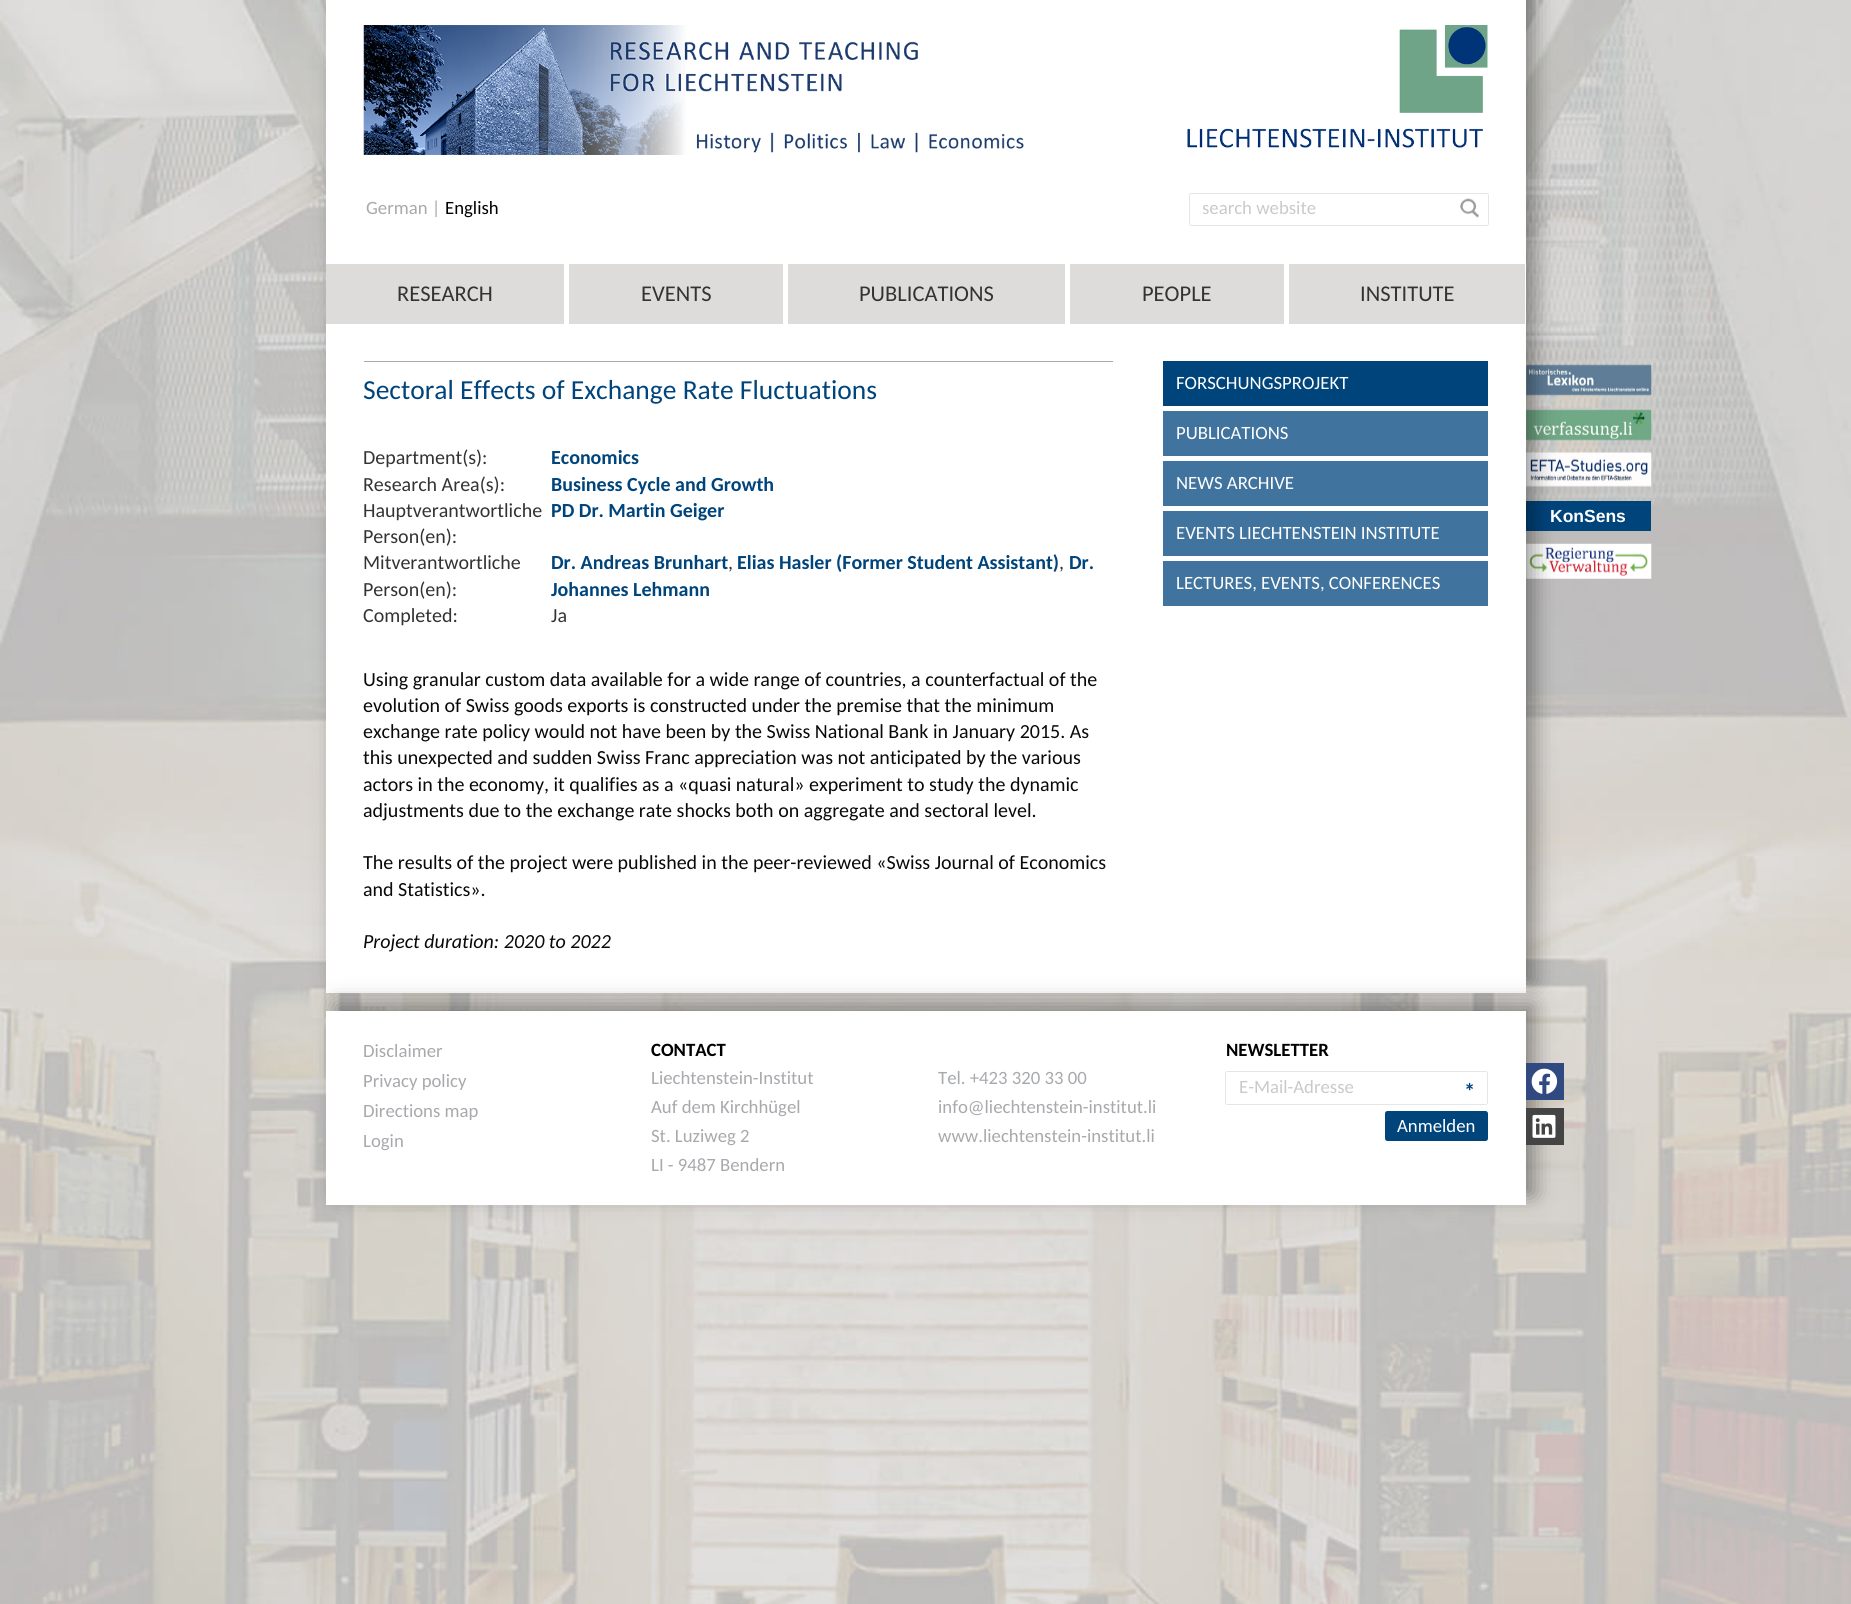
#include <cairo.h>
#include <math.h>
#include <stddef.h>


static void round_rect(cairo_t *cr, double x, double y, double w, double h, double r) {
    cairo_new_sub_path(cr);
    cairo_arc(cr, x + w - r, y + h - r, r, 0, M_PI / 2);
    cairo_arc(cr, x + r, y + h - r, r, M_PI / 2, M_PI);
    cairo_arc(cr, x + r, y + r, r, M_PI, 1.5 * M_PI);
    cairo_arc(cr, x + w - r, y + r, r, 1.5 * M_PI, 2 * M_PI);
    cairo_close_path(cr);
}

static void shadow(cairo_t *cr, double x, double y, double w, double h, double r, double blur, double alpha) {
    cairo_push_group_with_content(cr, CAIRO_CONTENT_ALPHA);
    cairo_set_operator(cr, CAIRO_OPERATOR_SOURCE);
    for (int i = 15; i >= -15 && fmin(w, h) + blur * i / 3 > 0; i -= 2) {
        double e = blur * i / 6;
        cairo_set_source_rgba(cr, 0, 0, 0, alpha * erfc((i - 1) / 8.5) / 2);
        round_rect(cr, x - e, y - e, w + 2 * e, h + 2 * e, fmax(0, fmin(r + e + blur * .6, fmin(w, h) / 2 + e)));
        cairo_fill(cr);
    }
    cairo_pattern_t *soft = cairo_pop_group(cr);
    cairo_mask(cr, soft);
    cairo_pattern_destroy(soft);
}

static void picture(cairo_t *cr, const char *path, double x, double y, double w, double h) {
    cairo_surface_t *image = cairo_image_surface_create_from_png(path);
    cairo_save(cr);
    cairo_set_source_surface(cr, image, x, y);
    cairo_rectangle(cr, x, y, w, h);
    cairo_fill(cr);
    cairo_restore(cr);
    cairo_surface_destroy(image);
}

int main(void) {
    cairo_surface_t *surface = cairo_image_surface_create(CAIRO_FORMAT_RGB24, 1851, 1604);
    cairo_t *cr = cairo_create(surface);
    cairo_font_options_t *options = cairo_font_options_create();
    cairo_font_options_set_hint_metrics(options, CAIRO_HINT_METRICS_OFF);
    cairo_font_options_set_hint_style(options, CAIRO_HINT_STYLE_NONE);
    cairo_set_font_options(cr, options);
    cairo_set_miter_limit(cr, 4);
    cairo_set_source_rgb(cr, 1, 1, 1);
    cairo_paint(cr);
    picture(cr, "img1.png", 0, 0, 1851, 1604);
    picture(cr, "img7.png", 1526, 364, 126, 32);
    picture(cr, "img8.png", 1526, 409, 126, 32);
    picture(cr, "img9.png", 1526, 451, 126, 36);
    cairo_set_source_rgb(cr, 0, 0.267, 0.486);
    cairo_rectangle(cr, 1526, 501, 125, 30);
    cairo_fill(cr);
    picture(cr, "img10.png", 1526, 543, 126, 36);
    cairo_set_source_rgb(cr, 0, 0, 0);
    shadow(cr, 336, -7, 1198, 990, 0, 11, 0.4);
    cairo_set_source_rgb(cr, 1, 1, 1);
    cairo_rectangle(cr, 326, 0, 1200, 993);
    cairo_fill(cr);
    picture(cr, "img2.png", 363, 25, 661, 130);
    picture(cr, "img3.png", 1187, 25, 301, 123);
    cairo_select_font_face(cr, "Carlito", CAIRO_FONT_SLANT_NORMAL, CAIRO_FONT_WEIGHT_NORMAL);
    cairo_set_font_size(cr, 18.75);
    cairo_set_source_rgb(cr, 0.655, 0.663, 0.675);
    cairo_move_to(cr, 366, 214);
    cairo_show_text(cr, "German |");
    cairo_set_source_rgb(cr, 0, 0, 0);
    cairo_move_to(cr, 445, 214);
    cairo_show_text(cr, "English");
    round_rect(cr, 1189.5, 193.5, 299, 32, 2);
    cairo_set_source_rgb(cr, 0.902, 0.902, 0.902);
    cairo_set_line_width(cr, 1);
    cairo_stroke(cr);
    cairo_save(cr);
    cairo_rectangle(cr, 1203, 198, 272, 22);
    cairo_clip(cr);
    cairo_set_source_rgb(cr, 0.792, 0.792, 0.792);
    cairo_move_to(cr, 1202, 214);
    cairo_show_text(cr, "search website");
    cairo_restore(cr);
    picture(cr, "img4.png", 1460, 198, 19, 20);
    cairo_set_source_rgb(cr, 0.871, 0.863, 0.859);
    cairo_rectangle(cr, 326, 264, 238, 60);
    cairo_fill(cr);
    cairo_set_font_size(cr, 22.5);
    cairo_set_source_rgb(cr, 0.2, 0.2, 0.2);
    cairo_move_to(cr, 397, 301);
    cairo_show_text(cr, "RESEARCH");
    cairo_set_source_rgb(cr, 0.871, 0.863, 0.859);
    cairo_rectangle(cr, 569, 264, 214, 60);
    cairo_fill(cr);
    cairo_set_source_rgb(cr, 0.2, 0.2, 0.2);
    cairo_move_to(cr, 641, 301);
    cairo_show_text(cr, "EVENTS");
    cairo_set_source_rgb(cr, 0.871, 0.863, 0.859);
    cairo_rectangle(cr, 788, 264, 277, 60);
    cairo_fill(cr);
    cairo_set_source_rgb(cr, 0.2, 0.2, 0.2);
    cairo_move_to(cr, 859, 301);
    cairo_show_text(cr, "PUBLICATIONS");
    cairo_set_source_rgb(cr, 0.871, 0.863, 0.859);
    cairo_rectangle(cr, 1070, 264, 214, 60);
    cairo_fill(cr);
    cairo_set_source_rgb(cr, 0.2, 0.2, 0.2);
    cairo_move_to(cr, 1142, 301);
    cairo_show_text(cr, "PEOPLE");
    cairo_set_source_rgb(cr, 0.871, 0.863, 0.859);
    cairo_rectangle(cr, 1289, 264, 236, 60);
    cairo_fill(cr);
    cairo_set_source_rgb(cr, 0.2, 0.2, 0.2);
    cairo_move_to(cr, 1360, 301);
    cairo_show_text(cr, "INSTITUTE");
    cairo_set_source_rgb(cr, 0.655, 0.663, 0.675);
    cairo_rectangle(cr, 364, 361, 749, 1);
    cairo_fill(cr);
    cairo_set_font_size(cr, 27.5);
    cairo_set_source_rgb(cr, 0, 0.267, 0.486);
    cairo_move_to(cr, 363, 399);
    cairo_show_text(cr, "Sectoral Effects of Exchange Rate Fluctuations");
    cairo_set_font_size(cr, 20);
    cairo_set_source_rgb(cr, 0.2, 0.2, 0.2);
    cairo_move_to(cr, 363, 464);
    cairo_show_text(cr, "Department(s):");
    cairo_select_font_face(cr, "Carlito", CAIRO_FONT_SLANT_NORMAL, CAIRO_FONT_WEIGHT_BOLD);
    cairo_set_source_rgb(cr, 0, 0.267, 0.486);
    cairo_move_to(cr, 551, 464);
    cairo_show_text(cr, "Economics");
    cairo_select_font_face(cr, "Carlito", CAIRO_FONT_SLANT_NORMAL, CAIRO_FONT_WEIGHT_NORMAL);
    cairo_set_source_rgb(cr, 0.2, 0.2, 0.2);
    cairo_move_to(cr, 363, 491);
    cairo_show_text(cr, "Research Area(s):");
    cairo_select_font_face(cr, "Carlito", CAIRO_FONT_SLANT_NORMAL, CAIRO_FONT_WEIGHT_BOLD);
    cairo_set_source_rgb(cr, 0, 0.267, 0.486);
    cairo_move_to(cr, 551, 491);
    cairo_show_text(cr, "Business Cycle and Growth");
    cairo_select_font_face(cr, "Carlito", CAIRO_FONT_SLANT_NORMAL, CAIRO_FONT_WEIGHT_NORMAL);
    cairo_set_source_rgb(cr, 0.2, 0.2, 0.2);
    cairo_move_to(cr, 363, 517);
    cairo_show_text(cr, "Hauptverantwortliche");
    cairo_move_to(cr, 363, 543);
    cairo_show_text(cr, "Person(en):");
    cairo_select_font_face(cr, "Carlito", CAIRO_FONT_SLANT_NORMAL, CAIRO_FONT_WEIGHT_BOLD);
    cairo_set_source_rgb(cr, 0, 0.267, 0.486);
    cairo_move_to(cr, 551, 517);
    cairo_show_text(cr, "PD Dr. Martin Geiger");
    cairo_select_font_face(cr, "Carlito", CAIRO_FONT_SLANT_NORMAL, CAIRO_FONT_WEIGHT_NORMAL);
    cairo_set_source_rgb(cr, 0.2, 0.2, 0.2);
    cairo_move_to(cr, 363, 569);
    cairo_show_text(cr, "Mitverantwortliche");
    cairo_move_to(cr, 363, 596);
    cairo_show_text(cr, "Person(en):");
    cairo_select_font_face(cr, "Carlito", CAIRO_FONT_SLANT_NORMAL, CAIRO_FONT_WEIGHT_BOLD);
    cairo_set_source_rgb(cr, 0, 0.267, 0.486);
    cairo_move_to(cr, 551, 569);
    cairo_show_text(cr, "Dr. Andreas Brunhart");
    cairo_select_font_face(cr, "Carlito", CAIRO_FONT_SLANT_NORMAL, CAIRO_FONT_WEIGHT_NORMAL);
    cairo_set_source_rgb(cr, 0.2, 0.2, 0.2);
    cairo_move_to(cr, 728, 569);
    cairo_show_text(cr, ",");
    cairo_select_font_face(cr, "Carlito", CAIRO_FONT_SLANT_NORMAL, CAIRO_FONT_WEIGHT_BOLD);
    cairo_set_source_rgb(cr, 0, 0.267, 0.486);
    cairo_move_to(cr, 737, 569);
    cairo_show_text(cr, "Elias Hasler (Former Student Assistant)");
    cairo_select_font_face(cr, "Carlito", CAIRO_FONT_SLANT_NORMAL, CAIRO_FONT_WEIGHT_NORMAL);
    cairo_set_source_rgb(cr, 0.2, 0.2, 0.2);
    cairo_move_to(cr, 1059, 569);
    cairo_show_text(cr, ",");
    cairo_select_font_face(cr, "Carlito", CAIRO_FONT_SLANT_NORMAL, CAIRO_FONT_WEIGHT_BOLD);
    cairo_set_source_rgb(cr, 0, 0.267, 0.486);
    cairo_move_to(cr, 1069, 569);
    cairo_show_text(cr, "Dr.");
    cairo_move_to(cr, 551, 596);
    cairo_show_text(cr, "Johannes Lehmann");
    cairo_select_font_face(cr, "Carlito", CAIRO_FONT_SLANT_NORMAL, CAIRO_FONT_WEIGHT_NORMAL);
    cairo_set_source_rgb(cr, 0.2, 0.2, 0.2);
    cairo_move_to(cr, 363, 622);
    cairo_show_text(cr, "Completed:");
    cairo_move_to(cr, 551, 622);
    cairo_show_text(cr, "Ja");
    cairo_set_source_rgb(cr, 0.039, 0.039, 0.039);
    cairo_move_to(cr, 363, 686);
    cairo_show_text(cr, "Using granular custom data available for a wide range of countries, a counterfactual of the");
    cairo_move_to(cr, 363, 712);
    cairo_show_text(cr, "evolution of Swiss goods exports is constructed under the premise that the minimum");
    cairo_move_to(cr, 363, 738);
    cairo_show_text(cr, "exchange rate policy would not have been by the Swiss National Bank in January 2015. As");
    cairo_move_to(cr, 363, 764);
    cairo_show_text(cr, "this unexpected and sudden Swiss Franc appreciation was not anticipated by the various");
    cairo_move_to(cr, 363, 791);
    cairo_show_text(cr, "actors in the economy, it qualifies as a «quasi natural» experiment to study the dynamic");
    cairo_move_to(cr, 363, 817);
    cairo_show_text(cr, "adjustments due to the exchange rate shocks both on aggregate and sectoral level.");
    cairo_move_to(cr, 363, 869);
    cairo_show_text(cr, "The results of the project were published in the peer-reviewed «Swiss Journal of Economics");
    cairo_move_to(cr, 363, 896);
    cairo_show_text(cr, "and Statistics».");
    cairo_select_font_face(cr, "Carlito", CAIRO_FONT_SLANT_ITALIC, CAIRO_FONT_WEIGHT_NORMAL);
    cairo_move_to(cr, 363, 948);
    cairo_show_text(cr, "Project duration: 2020 to 2022");
    cairo_set_source_rgb(cr, 0, 0.267, 0.486);
    cairo_rectangle(cr, 1163, 361, 325, 45);
    cairo_fill(cr);
    cairo_select_font_face(cr, "Carlito", CAIRO_FONT_SLANT_NORMAL, CAIRO_FONT_WEIGHT_NORMAL);
    cairo_set_font_size(cr, 18.75);
    cairo_set_source_rgb(cr, 1, 1, 1);
    cairo_move_to(cr, 1176, 389);
    cairo_show_text(cr, "FORSCHUNGSPROJEKT");
    cairo_set_source_rgb(cr, 0.251, 0.451, 0.616);
    cairo_rectangle(cr, 1163, 411, 325, 45);
    cairo_fill(cr);
    cairo_set_source_rgb(cr, 1, 1, 1);
    cairo_move_to(cr, 1176, 439);
    cairo_show_text(cr, "PUBLICATIONS");
    cairo_set_source_rgb(cr, 0.251, 0.451, 0.616);
    cairo_rectangle(cr, 1163, 461, 325, 45);
    cairo_fill(cr);
    cairo_set_source_rgb(cr, 1, 1, 1);
    cairo_move_to(cr, 1176, 489);
    cairo_show_text(cr, "NEWS ARCHIVE");
    cairo_set_source_rgb(cr, 0.251, 0.451, 0.616);
    cairo_rectangle(cr, 1163, 511, 325, 45);
    cairo_fill(cr);
    cairo_set_source_rgb(cr, 1, 1, 1);
    cairo_move_to(cr, 1176, 539);
    cairo_show_text(cr, "EVENTS LIECHTENSTEIN INSTITUTE");
    cairo_set_source_rgb(cr, 0.251, 0.451, 0.616);
    cairo_rectangle(cr, 1163, 561, 325, 45);
    cairo_fill(cr);
    cairo_set_source_rgb(cr, 1, 1, 1);
    cairo_move_to(cr, 1176, 589);
    cairo_show_text(cr, "LECTURES, EVENTS, CONFERENCES");
    cairo_set_source_rgb(cr, 0, 0, 0);
    shadow(cr, 336, 1004, 1198, 191, 0, 11, 0.4);
    cairo_set_source_rgb(cr, 1, 1, 1);
    cairo_rectangle(cr, 326, 1011, 1200, 194);
    cairo_fill(cr);
    cairo_set_source_rgb(cr, 0.655, 0.663, 0.675);
    cairo_move_to(cr, 363, 1057);
    cairo_show_text(cr, "Disclaimer");
    cairo_move_to(cr, 363, 1087);
    cairo_show_text(cr, "Privacy policy");
    cairo_move_to(cr, 363, 1117);
    cairo_show_text(cr, "Directions map");
    cairo_move_to(cr, 363, 1147);
    cairo_show_text(cr, "Login");
    cairo_select_font_face(cr, "Carlito", CAIRO_FONT_SLANT_NORMAL, CAIRO_FONT_WEIGHT_BOLD);
    cairo_set_source_rgb(cr, 0, 0, 0);
    cairo_move_to(cr, 651, 1056);
    cairo_show_text(cr, "CONTACT");
    cairo_select_font_face(cr, "Carlito", CAIRO_FONT_SLANT_NORMAL, CAIRO_FONT_WEIGHT_NORMAL);
    cairo_set_source_rgb(cr, 0.655, 0.663, 0.675);
    cairo_move_to(cr, 651, 1084);
    cairo_show_text(cr, "Liechtenstein-Institut");
    cairo_move_to(cr, 651, 1113);
    cairo_show_text(cr, "Auf dem Kirchhügel");
    cairo_move_to(cr, 651, 1142);
    cairo_show_text(cr, "St. Luziweg 2");
    cairo_move_to(cr, 651, 1171);
    cairo_show_text(cr, "LI - 9487 Bendern");
    cairo_move_to(cr, 938, 1084);
    cairo_show_text(cr, "Tel. +423 320 33 00");
    cairo_move_to(cr, 938, 1113);
    cairo_show_text(cr, "info@liechtenstein-institut.li");
    cairo_move_to(cr, 938, 1142);
    cairo_show_text(cr, "www.liechtenstein-institut.li");
    cairo_select_font_face(cr, "Carlito", CAIRO_FONT_SLANT_NORMAL, CAIRO_FONT_WEIGHT_BOLD);
    cairo_set_source_rgb(cr, 0, 0, 0);
    cairo_move_to(cr, 1226, 1056);
    cairo_show_text(cr, "NEWSLETTER");
    round_rect(cr, 1225.5, 1071.5, 262, 33, 2);
    cairo_set_source_rgb(cr, 0.902, 0.902, 0.902);
    cairo_stroke(cr);
    cairo_select_font_face(cr, "Carlito", CAIRO_FONT_SLANT_NORMAL, CAIRO_FONT_WEIGHT_NORMAL);
    cairo_set_source_rgb(cr, 0.792, 0.792, 0.792);
    cairo_move_to(cr, 1239, 1093);
    cairo_show_text(cr, "E-Mail-Adresse");
    cairo_select_font_face(cr, "Carlito", CAIRO_FONT_SLANT_NORMAL, CAIRO_FONT_WEIGHT_BOLD);
    cairo_set_font_size(cr, 22.5);
    cairo_set_source_rgb(cr, 0, 0.267, 0.486);
    cairo_move_to(cr, 1464, 1099);
    cairo_show_text(cr, "*");
    round_rect(cr, 1385, 1111, 103, 30, 2.5);
    cairo_fill(cr);
    cairo_select_font_face(cr, "Carlito", CAIRO_FONT_SLANT_NORMAL, CAIRO_FONT_WEIGHT_NORMAL);
    cairo_set_font_size(cr, 18.75);
    cairo_set_source_rgb(cr, 1, 1, 1);
    cairo_move_to(cr, 1397, 1132);
    cairo_show_text(cr, "Anmelden");
    cairo_set_source_rgb(cr, 0.188, 0.29, 0.506);
    cairo_rectangle(cr, 1526, 1063, 38, 37);
    cairo_fill(cr);
    picture(cr, "img5.png", 1531, 1068, 27, 26);
    cairo_set_source_rgb(cr, 0.267, 0.267, 0.267);
    cairo_rectangle(cr, 1526, 1108, 38, 37);
    cairo_fill(cr);
    picture(cr, "img6.png", 1532, 1114, 24, 24);
    cairo_select_font_face(cr, "Liberation Sans", CAIRO_FONT_SLANT_NORMAL, CAIRO_FONT_WEIGHT_BOLD);
    cairo_set_font_size(cr, 17.5);
    cairo_set_source_rgb(cr, 1, 1, 1);
    cairo_move_to(cr, 1550, 522);
    cairo_show_text(cr, "KonSens");
    cairo_surface_write_to_png(surface, "page.png");
    cairo_font_options_destroy(options);
    cairo_destroy(cr);
    cairo_surface_destroy(surface);
    return 0;
}
